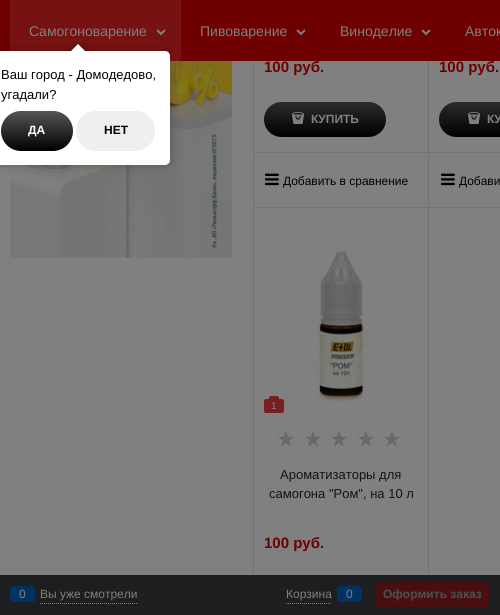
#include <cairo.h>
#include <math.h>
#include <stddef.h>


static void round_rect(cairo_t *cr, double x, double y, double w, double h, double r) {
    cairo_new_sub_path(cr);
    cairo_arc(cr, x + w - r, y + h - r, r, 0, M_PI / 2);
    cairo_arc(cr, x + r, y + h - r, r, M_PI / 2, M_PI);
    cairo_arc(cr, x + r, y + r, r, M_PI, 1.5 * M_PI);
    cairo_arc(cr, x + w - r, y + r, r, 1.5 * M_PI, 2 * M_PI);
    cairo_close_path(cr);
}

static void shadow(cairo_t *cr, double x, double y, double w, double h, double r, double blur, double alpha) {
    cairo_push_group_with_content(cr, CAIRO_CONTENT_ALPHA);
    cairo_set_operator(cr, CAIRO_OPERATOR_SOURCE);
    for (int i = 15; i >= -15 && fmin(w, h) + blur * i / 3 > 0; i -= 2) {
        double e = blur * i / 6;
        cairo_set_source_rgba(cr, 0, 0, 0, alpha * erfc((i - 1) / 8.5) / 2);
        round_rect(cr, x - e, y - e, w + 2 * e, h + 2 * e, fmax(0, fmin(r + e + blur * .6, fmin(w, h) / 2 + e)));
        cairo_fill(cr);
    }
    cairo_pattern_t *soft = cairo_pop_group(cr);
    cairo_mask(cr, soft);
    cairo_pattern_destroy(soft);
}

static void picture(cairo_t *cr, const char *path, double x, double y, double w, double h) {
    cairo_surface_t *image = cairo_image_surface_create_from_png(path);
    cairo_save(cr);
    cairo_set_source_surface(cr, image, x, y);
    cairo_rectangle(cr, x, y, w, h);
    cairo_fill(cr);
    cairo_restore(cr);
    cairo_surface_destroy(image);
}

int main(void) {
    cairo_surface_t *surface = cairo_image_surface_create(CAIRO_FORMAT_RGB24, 500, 615);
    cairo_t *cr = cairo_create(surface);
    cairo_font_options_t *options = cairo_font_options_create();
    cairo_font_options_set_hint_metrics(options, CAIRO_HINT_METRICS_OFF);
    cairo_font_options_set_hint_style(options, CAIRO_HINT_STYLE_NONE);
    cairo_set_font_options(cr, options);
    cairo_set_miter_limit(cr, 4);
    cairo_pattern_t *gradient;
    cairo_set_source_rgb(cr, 0.502, 0.502, 0.502);
    cairo_paint(cr);
    cairo_rectangle(cr, 253.5, -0.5, 175, 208);
    cairo_set_source_rgb(cr, 0.443, 0.447, 0.447);
    cairo_set_line_width(cr, 1);
    cairo_stroke(cr);
    cairo_rectangle(cr, 428.5, -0.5, 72, 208);
    cairo_stroke(cr);
    cairo_set_source_rgb(cr, 0.431, 0, 0);
    cairo_rectangle(cr, 0, 0, 500, 61);
    cairo_fill(cr);
    cairo_set_source_rgb(cr, 0.467, 0.071, 0.071);
    cairo_rectangle(cr, 10, 0, 171, 61);
    cairo_fill(cr);
    cairo_select_font_face(cr, "Liberation Sans", CAIRO_FONT_SLANT_NORMAL, CAIRO_FONT_WEIGHT_NORMAL);
    cairo_set_font_size(cr, 14);
    cairo_set_source_rgb(cr, 0.502, 0.502, 0.502);
    cairo_move_to(cr, 29, 36);
    cairo_show_text(cr, "Самогоноварение");
    picture(cr, "img1.png", 156, 29, 10, 7);
    cairo_move_to(cr, 200, 36);
    cairo_show_text(cr, "Пивоварение");
    picture(cr, "img2.png", 296, 29, 10, 7);
    cairo_move_to(cr, 340, 36);
    cairo_show_text(cr, "Виноделие");
    picture(cr, "img2.png", 421, 29, 10, 7);
    cairo_move_to(cr, 465, 36);
    cairo_show_text(cr, "Авток");
    picture(cr, "img3.png", 10, 61, 222, 197);
    cairo_select_font_face(cr, "Liberation Sans", CAIRO_FONT_SLANT_NORMAL, CAIRO_FONT_WEIGHT_BOLD);
    cairo_set_font_size(cr, 15);
    cairo_set_source_rgb(cr, 0.431, 0, 0);
    cairo_move_to(cr, 264, 72);
    cairo_show_text(cr, "100 руб.");
    gradient = cairo_pattern_create_linear(325, 102, 325, 137);
    cairo_pattern_add_color_stop_rgba(gradient, 0, 0.169, 0.169, 0.169, 1);
    cairo_pattern_add_color_stop_rgba(gradient, 1, 0, 0, 0, 1);
    cairo_set_source(cr, gradient);
    cairo_pattern_destroy(gradient);
    round_rect(cr, 264, 102, 122, 35, 17.5);
    cairo_fill(cr);
    picture(cr, "img4.png", 292, 112, 12, 12);
    cairo_set_font_size(cr, 12);
    cairo_set_source_rgb(cr, 0.502, 0.502, 0.502);
    cairo_move_to(cr, 311, 123);
    cairo_show_text(cr, "КУПИТЬ");
    cairo_set_source_rgb(cr, 0.443, 0.447, 0.447);
    cairo_rectangle(cr, 254, 152, 174, 1);
    cairo_fill(cr);
    picture(cr, "img5.png", 265, 173, 14, 13);
    cairo_select_font_face(cr, "Liberation Sans", CAIRO_FONT_SLANT_NORMAL, CAIRO_FONT_WEIGHT_NORMAL);
    cairo_set_source_rgb(cr, 0, 0, 0);
    cairo_move_to(cr, 283, 185);
    cairo_show_text(cr, "Добавить в сравнение");
    cairo_select_font_face(cr, "Liberation Sans", CAIRO_FONT_SLANT_NORMAL, CAIRO_FONT_WEIGHT_BOLD);
    cairo_set_font_size(cr, 15);
    cairo_set_source_rgb(cr, 0.431, 0, 0);
    cairo_move_to(cr, 439, 72);
    cairo_show_text(cr, "100 руб.");
    gradient = cairo_pattern_create_linear(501, 102, 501, 137);
    cairo_pattern_add_color_stop_rgba(gradient, 0, 0.169, 0.169, 0.169, 1);
    cairo_pattern_add_color_stop_rgba(gradient, 1, 0, 0, 0, 1);
    cairo_set_source(cr, gradient);
    cairo_pattern_destroy(gradient);
    round_rect(cr, 439, 102, 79, 35, 17.5);
    cairo_fill(cr);
    picture(cr, "img4.png", 468, 112, 12, 12);
    cairo_set_font_size(cr, 12);
    cairo_set_source_rgb(cr, 0.502, 0.502, 0.502);
    cairo_move_to(cr, 487, 123);
    cairo_show_text(cr, "КУ");
    cairo_set_source_rgb(cr, 0.443, 0.447, 0.447);
    cairo_rectangle(cr, 429, 152, 71, 1);
    cairo_fill(cr);
    picture(cr, "img5.png", 441, 173, 14, 13);
    cairo_select_font_face(cr, "Liberation Sans", CAIRO_FONT_SLANT_NORMAL, CAIRO_FONT_WEIGHT_NORMAL);
    cairo_set_source_rgb(cr, 0, 0, 0);
    cairo_move_to(cr, 459, 185);
    cairo_show_text(cr, "Добави");
    cairo_rectangle(cr, 253.5, 207.5, 175, 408);
    cairo_set_source_rgb(cr, 0.443, 0.447, 0.447);
    cairo_stroke(cr);
    picture(cr, "img6.png", 313, 251, 57, 151);
    cairo_set_source_rgb(cr, 0.471, 0.118, 0.118);
    round_rect(cr, 264, 399, 20, 14, 2);
    cairo_fill(cr);
    cairo_new_path(cr);
    cairo_move_to(cr, 271, 396);
    cairo_line_to(cr, 277, 396);
    cairo_curve_to(cr, 278, 396, 279, 397, 279, 398);
    cairo_line_to(cr, 279, 399);
    cairo_line_to(cr, 269, 399);
    cairo_line_to(cr, 269, 398);
    cairo_curve_to(cr, 269, 397, 270, 396, 271, 396);
    cairo_close_path(cr);
    cairo_fill(cr);
    cairo_set_font_size(cr, 10);
    cairo_set_source_rgb(cr, 0.502, 0.502, 0.502);
    cairo_move_to(cr, 271, 409);
    cairo_show_text(cr, "1");
    picture(cr, "img7.png", 278, 431, 16, 16);
    picture(cr, "img7.png", 305, 431, 16, 16);
    picture(cr, "img7.png", 331, 431, 16, 16);
    picture(cr, "img7.png", 358, 431, 16, 16);
    picture(cr, "img7.png", 384, 431, 16, 16);
    cairo_set_font_size(cr, 13);
    cairo_set_source_rgb(cr, 0.075, 0.078, 0.086);
    cairo_move_to(cr, 280, 479);
    cairo_show_text(cr, "Ароматизаторы для");
    cairo_move_to(cr, 269, 498);
    cairo_show_text(cr, "самогона \"Ром\", на 10 л");
    cairo_select_font_face(cr, "Liberation Sans", CAIRO_FONT_SLANT_NORMAL, CAIRO_FONT_WEIGHT_BOLD);
    cairo_set_font_size(cr, 15);
    cairo_set_source_rgb(cr, 0.431, 0, 0);
    cairo_move_to(cr, 264, 548);
    cairo_show_text(cr, "100 руб.");
    cairo_set_source_rgb(cr, 0.11, 0.118, 0.125);
    cairo_rectangle(cr, 0, 575, 500, 40);
    cairo_fill(cr);
    cairo_new_path(cr);
    cairo_move_to(cr, 40, 603.5);
    cairo_line_to(cr, 137, 603.5);
    cairo_set_source_rgb(cr, 0.502, 0.502, 0.502);
    cairo_set_dash(cr, (double[]){1, 1}, 2, 0);
    cairo_stroke(cr);
    cairo_set_source_rgb(cr, 0.012, 0.192, 0.38);
    round_rect(cr, 10, 586, 25, 16, 3);
    cairo_fill(cr);
    cairo_select_font_face(cr, "Liberation Sans", CAIRO_FONT_SLANT_NORMAL, CAIRO_FONT_WEIGHT_NORMAL);
    cairo_set_font_size(cr, 12);
    cairo_set_source_rgb(cr, 0.502, 0.502, 0.502);
    cairo_move_to(cr, 19, 598);
    cairo_show_text(cr, "0");
    cairo_move_to(cr, 40, 598);
    cairo_show_text(cr, "Вы уже смотрели");
    cairo_new_path(cr);
    cairo_move_to(cr, 286, 603.5);
    cairo_line_to(cr, 332, 603.5);
    cairo_stroke(cr);
    cairo_move_to(cr, 286, 598);
    cairo_show_text(cr, "Корзина");
    cairo_set_source_rgb(cr, 0.012, 0.192, 0.38);
    round_rect(cr, 337, 586, 25, 16, 3);
    cairo_fill(cr);
    cairo_set_source_rgb(cr, 0.502, 0.502, 0.502);
    cairo_move_to(cr, 346, 598);
    cairo_show_text(cr, "0");
    cairo_set_source_rgb(cr, 0.278, 0.059, 0.063);
    round_rect(cr, 375, 582, 115, 25, 5);
    cairo_fill(cr);
    cairo_select_font_face(cr, "Liberation Sans", CAIRO_FONT_SLANT_NORMAL, CAIRO_FONT_WEIGHT_BOLD);
    cairo_set_source_rgb(cr, 0.306, 0.31, 0.314);
    cairo_move_to(cr, 383, 598);
    cairo_show_text(cr, "Оформить заказ");
    cairo_set_source_rgb(cr, 0, 0, 0);
    shadow(cr, -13, 51, 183, 114, 5, 4.5, 0.25);
    cairo_set_source_rgb(cr, 1, 1, 1);
    round_rect(cr, -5, 51, 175, 114, 5);
    cairo_fill(cr);
    cairo_save(cr);
    cairo_rectangle(cr, 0, 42, 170, 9);
    cairo_clip(cr);
    cairo_set_source_rgb(cr, 0, 0, 0);
    shadow(cr, 73, 46, 10, 10, 0, 4.5, 0.25);
    cairo_restore(cr);
    cairo_save(cr);
    cairo_rectangle(cr, 0, 42, 170, 9);
    cairo_clip(cr);
    cairo_new_path(cr);
    cairo_move_to(cr, 78, 44);
    cairo_line_to(cr, 85, 51);
    cairo_line_to(cr, 78, 58);
    cairo_line_to(cr, 71, 51);
    cairo_close_path(cr);
    cairo_fill(cr);
    cairo_restore(cr);
    cairo_select_font_face(cr, "Liberation Sans", CAIRO_FONT_SLANT_NORMAL, CAIRO_FONT_WEIGHT_NORMAL);
    cairo_set_font_size(cr, 13);
    cairo_set_source_rgb(cr, 0, 0, 0);
    cairo_move_to(cr, 1, 79);
    cairo_show_text(cr, "Ваш город - Домодедово,");
    cairo_move_to(cr, 1, 99);
    cairo_show_text(cr, "угадали?");
    gradient = cairo_pattern_create_linear(37, 111, 37, 151);
    cairo_pattern_add_color_stop_rgba(gradient, 0, 0.333, 0.333, 0.333, 1);
    cairo_pattern_add_color_stop_rgba(gradient, 1, 0, 0, 0, 1);
    cairo_set_source(cr, gradient);
    cairo_pattern_destroy(gradient);
    round_rect(cr, 1, 111, 72, 40, 20);
    cairo_fill(cr);
    cairo_select_font_face(cr, "Liberation Sans", CAIRO_FONT_SLANT_NORMAL, CAIRO_FONT_WEIGHT_BOLD);
    cairo_set_font_size(cr, 12);
    cairo_set_source_rgb(cr, 1, 1, 1);
    cairo_move_to(cr, 28, 134);
    cairo_show_text(cr, "ДА");
    cairo_set_source_rgb(cr, 0.937, 0.937, 0.937);
    round_rect(cr, 76, 111, 79, 40, 20);
    cairo_fill(cr);
    cairo_set_source_rgb(cr, 0, 0, 0);
    cairo_move_to(cr, 104, 134);
    cairo_show_text(cr, "НЕТ");
    cairo_surface_write_to_png(surface, "page.png");
    cairo_font_options_destroy(options);
    cairo_destroy(cr);
    cairo_surface_destroy(surface);
    return 0;
}
